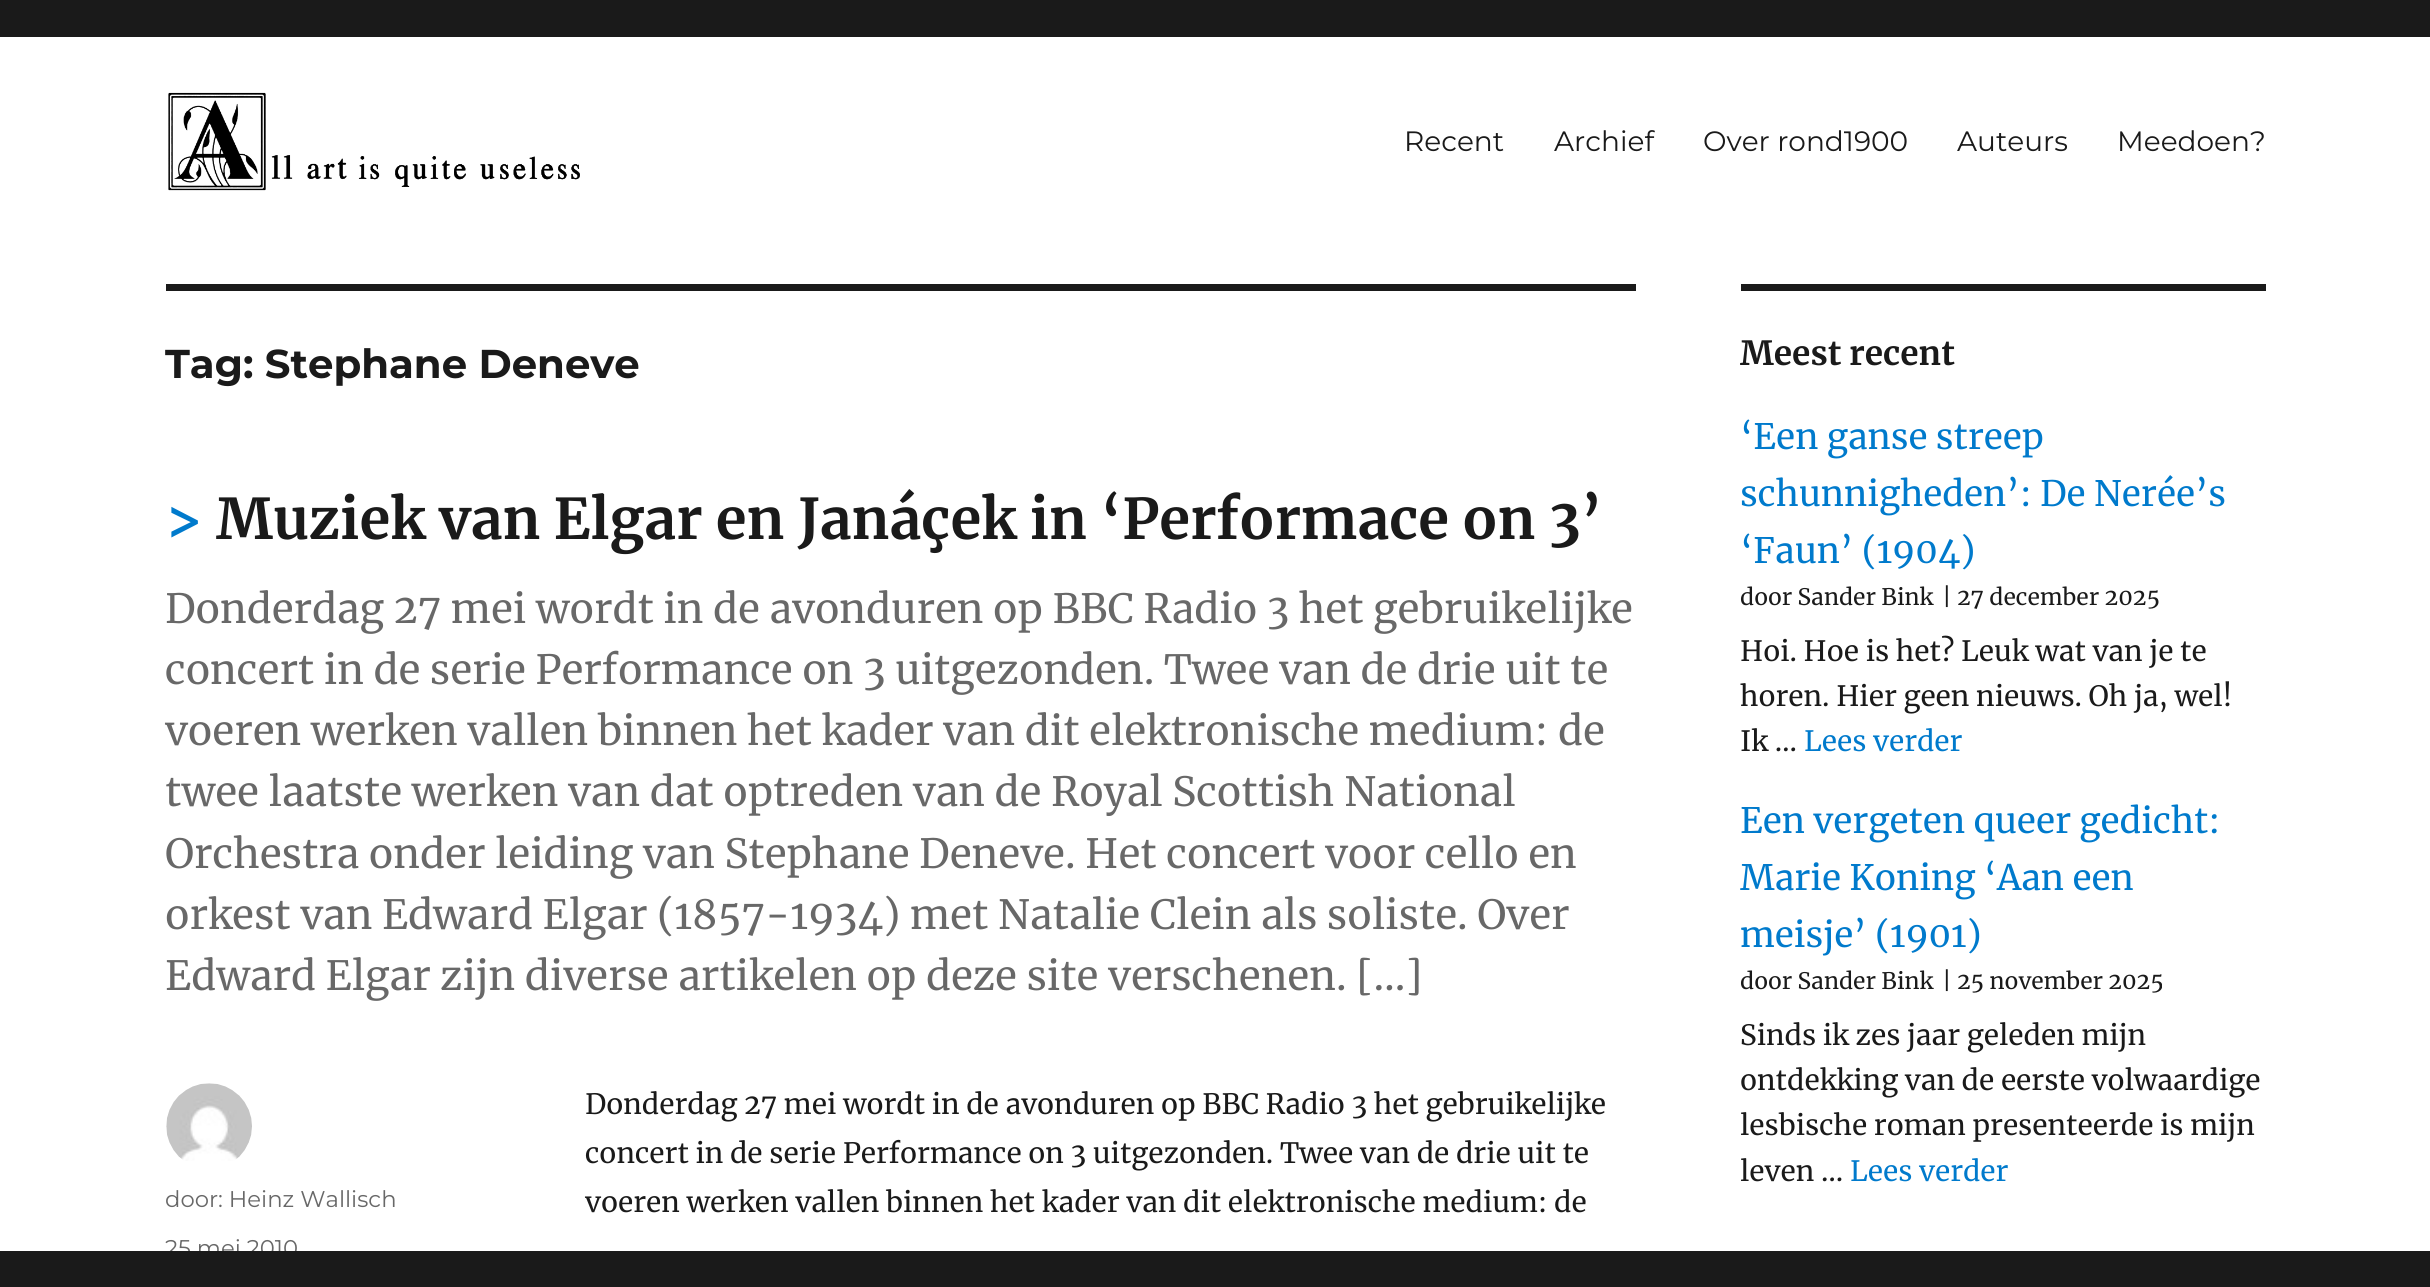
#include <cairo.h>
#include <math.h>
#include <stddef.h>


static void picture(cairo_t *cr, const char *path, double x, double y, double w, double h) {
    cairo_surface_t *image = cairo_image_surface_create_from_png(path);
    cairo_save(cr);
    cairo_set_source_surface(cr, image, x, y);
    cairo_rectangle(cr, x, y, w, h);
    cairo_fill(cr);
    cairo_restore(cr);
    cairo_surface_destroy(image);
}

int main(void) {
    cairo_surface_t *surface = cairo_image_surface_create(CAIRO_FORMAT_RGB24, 2430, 1287);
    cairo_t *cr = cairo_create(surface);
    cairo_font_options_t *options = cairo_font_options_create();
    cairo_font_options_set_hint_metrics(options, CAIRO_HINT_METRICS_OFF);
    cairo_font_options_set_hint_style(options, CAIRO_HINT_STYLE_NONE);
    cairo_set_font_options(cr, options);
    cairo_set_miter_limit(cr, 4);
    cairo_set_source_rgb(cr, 1, 1, 1);
    cairo_paint(cr);
    cairo_set_source_rgb(cr, 0.102, 0.102, 0.102);
    cairo_rectangle(cr, 0, 0, 2430, 37);
    cairo_fill(cr);
    picture(cr, "img1.png", 168, 92, 412, 99);
    cairo_select_font_face(cr, "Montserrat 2 Thin", CAIRO_FONT_SLANT_NORMAL, CAIRO_FONT_WEIGHT_NORMAL);
    cairo_set_font_size(cr, 28);
    cairo_move_to(cr, 1404, 151);
    cairo_show_text(cr, "Recent");
    cairo_move_to(cr, 1554, 151);
    cairo_show_text(cr, "Archief");
    cairo_move_to(cr, 1703, 151);
    cairo_show_text(cr, "Over rond1900");
    cairo_move_to(cr, 1957, 151);
    cairo_show_text(cr, "Auteurs");
    cairo_move_to(cr, 2117, 151);
    cairo_show_text(cr, "Meedoen?");
    cairo_rectangle(cr, 166, 284, 1470, 7);
    cairo_fill(cr);
    cairo_select_font_face(cr, "Montserrat Thin", CAIRO_FONT_SLANT_NORMAL, CAIRO_FONT_WEIGHT_NORMAL);
    cairo_set_font_size(cr, 40.25);
    cairo_move_to(cr, 165, 378);
    cairo_show_text(cr, "Tag: Stephane Deneve");
    cairo_select_font_face(cr, "Merriweather", CAIRO_FONT_SLANT_NORMAL, CAIRO_FONT_WEIGHT_BOLD);
    cairo_set_font_size(cr, 56);
    cairo_set_source_rgb(cr, 0, 0.478, 0.8);
    cairo_move_to(cr, 165, 539);
    cairo_show_text(cr, ">");
    cairo_set_source_rgb(cr, 0.102, 0.102, 0.102);
    cairo_move_to(cr, 216, 539);
    cairo_show_text(cr, "Muziek van Elgar en Janáçek in ‘Performace on 3’");
    cairo_select_font_face(cr, "Merriweather", CAIRO_FONT_SLANT_NORMAL, CAIRO_FONT_WEIGHT_NORMAL);
    cairo_set_font_size(cr, 40.25);
    cairo_set_source_rgb(cr, 0.408, 0.408, 0.408);
    cairo_move_to(cr, 165, 623);
    cairo_show_text(cr, "Donderdag 27 mei wordt in de avonduren op BBC Radio 3 het gebruikelijke");
    cairo_move_to(cr, 165, 684);
    cairo_show_text(cr, "concert in de serie Performance on 3 uitgezonden. Twee van de drie uit te");
    cairo_move_to(cr, 165, 745);
    cairo_show_text(cr, "voeren werken vallen binnen het kader van dit elektronische medium: de");
    cairo_move_to(cr, 165, 806);
    cairo_show_text(cr, "twee laatste werken van dat optreden van de Royal Scottish National");
    cairo_move_to(cr, 165, 868);
    cairo_show_text(cr, "Orchestra onder leiding van Stephane Deneve. Het concert voor cello en");
    cairo_move_to(cr, 165, 929);
    cairo_show_text(cr, "orkest van Edward Elgar (1857-1934) met Natalie Clein als soliste. Over");
    cairo_move_to(cr, 165, 990);
    cairo_show_text(cr, "Edward Elgar zijn diverse artikelen op deze site verschenen. […]");
    cairo_set_font_size(cr, 28);
    cairo_set_source_rgb(cr, 0.102, 0.102, 0.102);
    cairo_move_to(cr, 585, 1114);
    cairo_show_text(cr, "Donderdag 27 mei wordt in de avonduren op BBC Radio 3 het gebruikelijke");
    cairo_move_to(cr, 585, 1163);
    cairo_show_text(cr, "concert in de serie Performance on 3 uitgezonden. Twee van de drie uit te");
    cairo_move_to(cr, 585, 1212);
    cairo_show_text(cr, "voeren werken vallen binnen het kader van dit elektronische medium: de");
    picture(cr, "img2.png", 166, 1083, 86, 78);
    cairo_select_font_face(cr, "Montserrat 2 Thin", CAIRO_FONT_SLANT_NORMAL, CAIRO_FONT_WEIGHT_NORMAL);
    cairo_set_font_size(cr, 22.75);
    cairo_set_source_rgb(cr, 0.408, 0.408, 0.408);
    cairo_move_to(cr, 165, 1207);
    cairo_show_text(cr, "door: Heinz Wallisch");
    cairo_move_to(cr, 165, 1256);
    cairo_show_text(cr, "25 mei 2010");
    cairo_set_source_rgb(cr, 0.102, 0.102, 0.102);
    cairo_rectangle(cr, 1741, 284, 525, 7);
    cairo_fill(cr);
    cairo_select_font_face(cr, "Merriweather", CAIRO_FONT_SLANT_NORMAL, CAIRO_FONT_WEIGHT_BOLD);
    cairo_set_font_size(cr, 33.25);
    cairo_move_to(cr, 1740, 365);
    cairo_show_text(cr, "Meest recent");
    cairo_select_font_face(cr, "Merriweather", CAIRO_FONT_SLANT_NORMAL, CAIRO_FONT_WEIGHT_NORMAL);
    cairo_set_font_size(cr, 35);
    cairo_set_source_rgb(cr, 0, 0.478, 0.8);
    cairo_move_to(cr, 1740, 449);
    cairo_show_text(cr, "‘Een ganse streep");
    cairo_move_to(cr, 1740, 506);
    cairo_show_text(cr, "schunnigheden’: De Nerée’s");
    cairo_move_to(cr, 1740, 563);
    cairo_show_text(cr, "‘Faun’ (1904)");
    cairo_set_font_size(cr, 22.75);
    cairo_set_source_rgb(cr, 0.102, 0.102, 0.102);
    cairo_move_to(cr, 1740, 605);
    cairo_show_text(cr, "door Sander Bink");
    cairo_move_to(cr, 1942, 605);
    cairo_show_text(cr, "| 27 december 2025");
    cairo_set_font_size(cr, 28);
    cairo_move_to(cr, 1740, 661);
    cairo_show_text(cr, "Hoi. Hoe is het? Leuk wat van je te");
    cairo_move_to(cr, 1740, 706);
    cairo_show_text(cr, "horen. Hier geen nieuws. Oh ja, wel!");
    cairo_move_to(cr, 1740, 751);
    cairo_show_text(cr, "Ik …");
    cairo_set_source_rgb(cr, 0, 0.478, 0.8);
    cairo_move_to(cr, 1804, 751);
    cairo_show_text(cr, "Lees verder");
    cairo_set_font_size(cr, 35);
    cairo_move_to(cr, 1740, 833);
    cairo_show_text(cr, "Een vergeten queer gedicht:");
    cairo_move_to(cr, 1740, 890);
    cairo_show_text(cr, "Marie Koning ‘Aan een");
    cairo_move_to(cr, 1740, 947);
    cairo_show_text(cr, "meisje’ (1901)");
    cairo_set_font_size(cr, 22.75);
    cairo_set_source_rgb(cr, 0.102, 0.102, 0.102);
    cairo_move_to(cr, 1740, 989);
    cairo_show_text(cr, "door Sander Bink");
    cairo_move_to(cr, 1942, 989);
    cairo_show_text(cr, "| 25 november 2025");
    cairo_set_font_size(cr, 28);
    cairo_move_to(cr, 1740, 1045);
    cairo_show_text(cr, "Sinds ik zes jaar geleden mijn");
    cairo_move_to(cr, 1740, 1090);
    cairo_show_text(cr, "ontdekking van de eerste volwaardige");
    cairo_move_to(cr, 1740, 1135);
    cairo_show_text(cr, "lesbische roman presenteerde is mijn");
    cairo_move_to(cr, 1740, 1181);
    cairo_show_text(cr, "leven …");
    cairo_set_source_rgb(cr, 0, 0.478, 0.8);
    cairo_move_to(cr, 1850, 1181);
    cairo_show_text(cr, "Lees verder");
    cairo_set_source_rgb(cr, 0.102, 0.102, 0.102);
    cairo_rectangle(cr, 0, 1251, 2430, 36);
    cairo_fill(cr);
    cairo_surface_write_to_png(surface, "page.png");
    cairo_font_options_destroy(options);
    cairo_destroy(cr);
    cairo_surface_destroy(surface);
    return 0;
}
